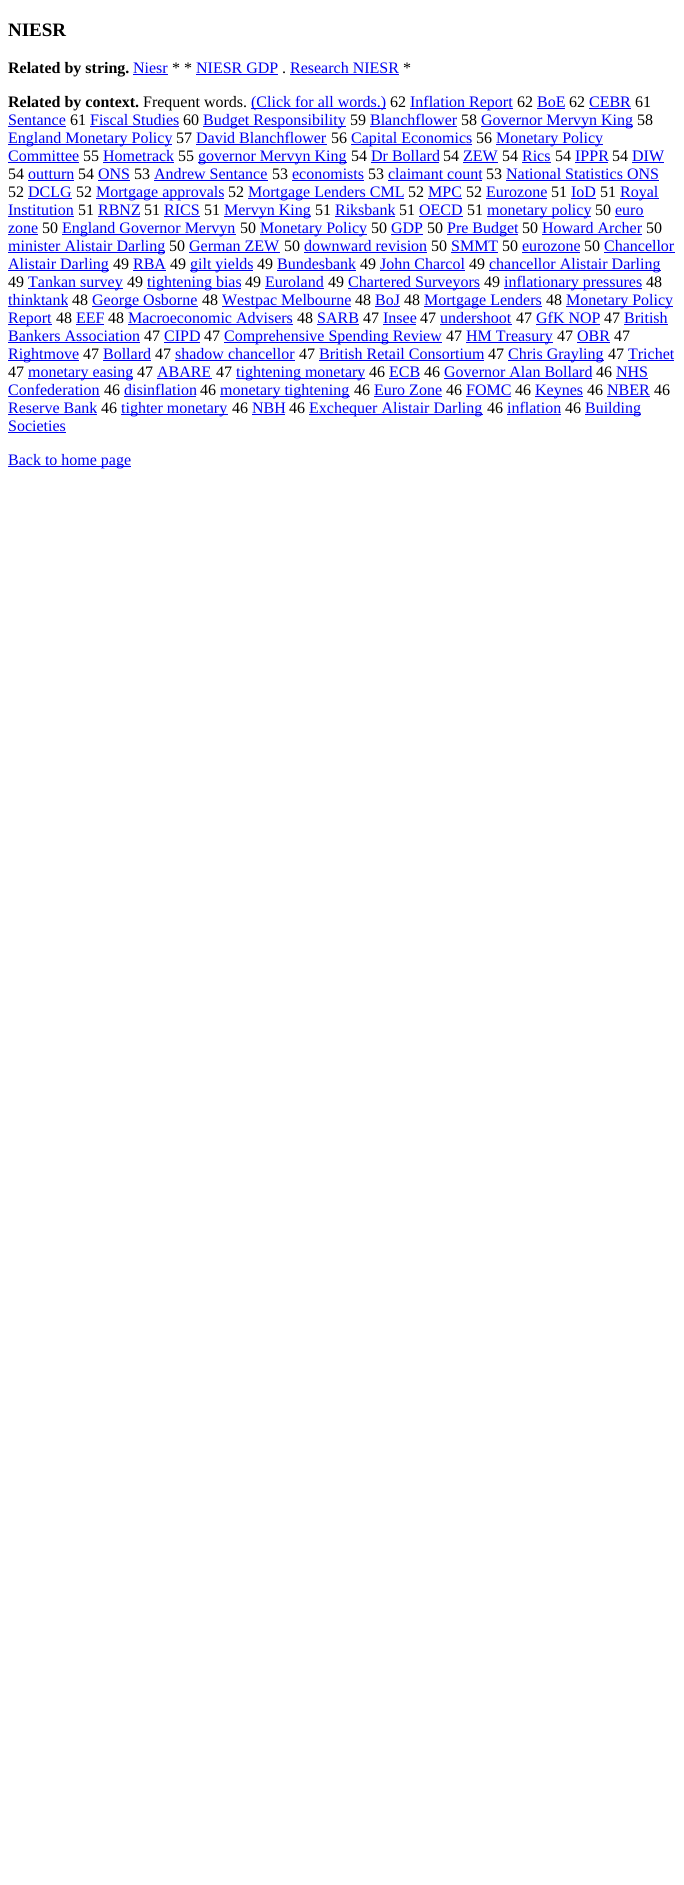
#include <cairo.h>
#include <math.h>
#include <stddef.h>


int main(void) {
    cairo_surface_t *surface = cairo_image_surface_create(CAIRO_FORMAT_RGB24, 684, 1885);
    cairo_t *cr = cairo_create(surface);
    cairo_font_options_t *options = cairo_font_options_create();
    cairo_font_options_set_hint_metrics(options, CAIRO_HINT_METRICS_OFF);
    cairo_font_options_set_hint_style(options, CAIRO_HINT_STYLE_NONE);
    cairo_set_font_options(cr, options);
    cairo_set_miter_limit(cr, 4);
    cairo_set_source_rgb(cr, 1, 1, 1);
    cairo_paint(cr);
    cairo_select_font_face(cr, "Liberation Serif", CAIRO_FONT_SLANT_NORMAL, CAIRO_FONT_WEIGHT_BOLD);
    cairo_set_font_size(cr, 19);
    cairo_set_source_rgb(cr, 0, 0, 0);
    cairo_move_to(cr, 8, 36);
    cairo_show_text(cr, "NIESR");
    cairo_set_font_size(cr, 16);
    cairo_move_to(cr, 8, 73);
    cairo_show_text(cr, "Related by string.");
    cairo_select_font_face(cr, "Liberation Serif", CAIRO_FONT_SLANT_NORMAL, CAIRO_FONT_WEIGHT_NORMAL);
    cairo_set_source_rgb(cr, 0, 0, 0.933);
    cairo_move_to(cr, 133, 73);
    cairo_show_text(cr, "Niesr");
    cairo_rectangle(cr, 133, 74, 35, 1);
    cairo_fill(cr);
    cairo_set_source_rgb(cr, 0, 0, 0);
    cairo_move_to(cr, 172, 73);
    cairo_show_text(cr, "* *");
    cairo_set_source_rgb(cr, 0, 0, 0.933);
    cairo_move_to(cr, 196, 73);
    cairo_show_text(cr, "NIESR GDP");
    cairo_rectangle(cr, 196, 74, 82, 1);
    cairo_fill(cr);
    cairo_move_to(cr, 290, 73);
    cairo_show_text(cr, "Research NIESR");
    cairo_rectangle(cr, 290, 74, 109, 1);
    cairo_fill(cr);
    cairo_set_source_rgb(cr, 0, 0, 0);
    cairo_move_to(cr, 403, 73);
    cairo_show_text(cr, "*");
    cairo_move_to(cr, 282, 73);
    cairo_show_text(cr, ".");
    cairo_select_font_face(cr, "Liberation Serif", CAIRO_FONT_SLANT_NORMAL, CAIRO_FONT_WEIGHT_BOLD);
    cairo_move_to(cr, 8, 107);
    cairo_show_text(cr, "Related by context.");
    cairo_select_font_face(cr, "Liberation Serif", CAIRO_FONT_SLANT_NORMAL, CAIRO_FONT_WEIGHT_NORMAL);
    cairo_move_to(cr, 143, 107);
    cairo_show_text(cr, "Frequent words.");
    cairo_set_source_rgb(cr, 0, 0, 0.933);
    cairo_rectangle(cr, 251, 108, 135, 1);
    cairo_fill(cr);
    cairo_move_to(cr, 251, 107);
    cairo_show_text(cr, "(Click for all words.)");
    cairo_set_source_rgb(cr, 0, 0, 0);
    cairo_move_to(cr, 390, 107);
    cairo_show_text(cr, "62");
    cairo_set_source_rgb(cr, 0, 0, 0.933);
    cairo_rectangle(cr, 410, 108, 103, 1);
    cairo_fill(cr);
    cairo_move_to(cr, 410, 107);
    cairo_show_text(cr, "Inflation Report");
    cairo_set_source_rgb(cr, 0, 0, 0);
    cairo_move_to(cr, 517, 107);
    cairo_show_text(cr, "62");
    cairo_set_source_rgb(cr, 0, 0, 0.933);
    cairo_move_to(cr, 537, 107);
    cairo_show_text(cr, "BoE");
    cairo_rectangle(cr, 537, 108, 28, 1);
    cairo_fill(cr);
    cairo_set_source_rgb(cr, 0, 0, 0);
    cairo_move_to(cr, 569, 107);
    cairo_show_text(cr, "62");
    cairo_set_source_rgb(cr, 0, 0, 0.933);
    cairo_move_to(cr, 589, 107);
    cairo_show_text(cr, "CEBR");
    cairo_rectangle(cr, 589, 108, 42, 1);
    cairo_fill(cr);
    cairo_set_source_rgb(cr, 0, 0, 0);
    cairo_move_to(cr, 635, 107);
    cairo_show_text(cr, "61");
    cairo_set_source_rgb(cr, 0, 0, 0.933);
    cairo_move_to(cr, 8, 125);
    cairo_show_text(cr, "Sentance");
    cairo_rectangle(cr, 8, 126, 58, 1);
    cairo_fill(cr);
    cairo_set_source_rgb(cr, 0, 0, 0);
    cairo_move_to(cr, 70, 125);
    cairo_show_text(cr, "61");
    cairo_set_source_rgb(cr, 0, 0, 0.933);
    cairo_move_to(cr, 90, 125);
    cairo_show_text(cr, "Fiscal Studies");
    cairo_rectangle(cr, 90, 126, 89, 1);
    cairo_fill(cr);
    cairo_set_source_rgb(cr, 0, 0, 0);
    cairo_move_to(cr, 183, 125);
    cairo_show_text(cr, "60");
    cairo_set_source_rgb(cr, 0, 0, 0.933);
    cairo_rectangle(cr, 203, 126, 143, 1);
    cairo_fill(cr);
    cairo_move_to(cr, 203, 125);
    cairo_show_text(cr, "Budget Responsibility");
    cairo_set_source_rgb(cr, 0, 0, 0);
    cairo_move_to(cr, 350, 125);
    cairo_show_text(cr, "59");
    cairo_set_source_rgb(cr, 0, 0, 0.933);
    cairo_move_to(cr, 370, 125);
    cairo_show_text(cr, "Blanchflower");
    cairo_rectangle(cr, 370, 126, 87, 1);
    cairo_fill(cr);
    cairo_set_source_rgb(cr, 0, 0, 0);
    cairo_move_to(cr, 461, 125);
    cairo_show_text(cr, "58");
    cairo_set_source_rgb(cr, 0, 0, 0.933);
    cairo_rectangle(cr, 481, 126, 152, 1);
    cairo_fill(cr);
    cairo_move_to(cr, 481, 125);
    cairo_show_text(cr, "Governor Mervyn King");
    cairo_set_source_rgb(cr, 0, 0, 0);
    cairo_move_to(cr, 637, 125);
    cairo_show_text(cr, "58");
    cairo_set_source_rgb(cr, 0, 0, 0.933);
    cairo_rectangle(cr, 8, 144, 164, 1);
    cairo_fill(cr);
    cairo_move_to(cr, 8, 143);
    cairo_show_text(cr, "England Monetary Policy");
    cairo_set_source_rgb(cr, 0, 0, 0);
    cairo_move_to(cr, 176, 143);
    cairo_show_text(cr, "57");
    cairo_set_source_rgb(cr, 0, 0, 0.933);
    cairo_move_to(cr, 196, 143);
    cairo_show_text(cr, "David Blanchflower");
    cairo_rectangle(cr, 196, 144, 131, 1);
    cairo_fill(cr);
    cairo_set_source_rgb(cr, 0, 0, 0);
    cairo_move_to(cr, 331, 143);
    cairo_show_text(cr, "56");
    cairo_set_source_rgb(cr, 0, 0, 0.933);
    cairo_rectangle(cr, 351, 144, 121, 1);
    cairo_fill(cr);
    cairo_move_to(cr, 351, 143);
    cairo_show_text(cr, "Capital Economics");
    cairo_set_source_rgb(cr, 0, 0, 0);
    cairo_move_to(cr, 476, 143);
    cairo_show_text(cr, "56");
    cairo_set_source_rgb(cr, 0, 0, 0.933);
    cairo_rectangle(cr, 496, 144, 107, 1);
    cairo_fill(cr);
    cairo_move_to(cr, 496, 143);
    cairo_show_text(cr, "Monetary Policy");
    cairo_move_to(cr, 8, 161);
    cairo_show_text(cr, "Committee");
    cairo_rectangle(cr, 8, 162, 71, 1);
    cairo_fill(cr);
    cairo_set_source_rgb(cr, 0, 0, 0);
    cairo_move_to(cr, 83, 161);
    cairo_show_text(cr, "55");
    cairo_set_source_rgb(cr, 0, 0, 0.933);
    cairo_move_to(cr, 103, 161);
    cairo_show_text(cr, "Hometrack");
    cairo_rectangle(cr, 103, 162, 71, 1);
    cairo_fill(cr);
    cairo_set_source_rgb(cr, 0, 0, 0);
    cairo_move_to(cr, 178, 161);
    cairo_show_text(cr, "55");
    cairo_set_source_rgb(cr, 0, 0, 0.933);
    cairo_rectangle(cr, 198, 162, 149, 1);
    cairo_fill(cr);
    cairo_move_to(cr, 198, 161);
    cairo_show_text(cr, "governor Mervyn King");
    cairo_set_source_rgb(cr, 0, 0, 0);
    cairo_move_to(cr, 351, 161);
    cairo_show_text(cr, "54");
    cairo_set_source_rgb(cr, 0, 0, 0.933);
    cairo_move_to(cr, 371, 161);
    cairo_show_text(cr, "Dr Bollard");
    cairo_rectangle(cr, 371, 162, 68, 1);
    cairo_fill(cr);
    cairo_set_source_rgb(cr, 0, 0, 0);
    cairo_move_to(cr, 443, 161);
    cairo_show_text(cr, "54");
    cairo_set_source_rgb(cr, 0, 0, 0.933);
    cairo_move_to(cr, 463, 161);
    cairo_show_text(cr, "ZEW");
    cairo_rectangle(cr, 463, 162, 35, 1);
    cairo_fill(cr);
    cairo_set_source_rgb(cr, 0, 0, 0);
    cairo_move_to(cr, 502, 161);
    cairo_show_text(cr, "54");
    cairo_set_source_rgb(cr, 0, 0, 0.933);
    cairo_move_to(cr, 522, 161);
    cairo_show_text(cr, "Rics");
    cairo_rectangle(cr, 522, 162, 29, 1);
    cairo_fill(cr);
    cairo_set_source_rgb(cr, 0, 0, 0);
    cairo_move_to(cr, 555, 161);
    cairo_show_text(cr, "54");
    cairo_set_source_rgb(cr, 0, 0, 0.933);
    cairo_move_to(cr, 575, 161);
    cairo_show_text(cr, "IPPR");
    cairo_rectangle(cr, 575, 162, 33, 1);
    cairo_fill(cr);
    cairo_set_source_rgb(cr, 0, 0, 0);
    cairo_move_to(cr, 612, 161);
    cairo_show_text(cr, "54");
    cairo_set_source_rgb(cr, 0, 0, 0.933);
    cairo_move_to(cr, 632, 161);
    cairo_show_text(cr, "DIW");
    cairo_rectangle(cr, 632, 162, 32, 1);
    cairo_fill(cr);
    cairo_set_source_rgb(cr, 0, 0, 0);
    cairo_move_to(cr, 8, 179);
    cairo_show_text(cr, "54");
    cairo_set_source_rgb(cr, 0, 0, 0.933);
    cairo_move_to(cr, 28, 179);
    cairo_show_text(cr, "outturn");
    cairo_rectangle(cr, 28, 180, 46, 1);
    cairo_fill(cr);
    cairo_set_source_rgb(cr, 0, 0, 0);
    cairo_move_to(cr, 78, 179);
    cairo_show_text(cr, "54");
    cairo_set_source_rgb(cr, 0, 0, 0.933);
    cairo_move_to(cr, 98, 179);
    cairo_show_text(cr, "ONS");
    cairo_rectangle(cr, 98, 180, 32, 1);
    cairo_fill(cr);
    cairo_set_source_rgb(cr, 0, 0, 0);
    cairo_move_to(cr, 134, 179);
    cairo_show_text(cr, "53");
    cairo_set_source_rgb(cr, 0, 0, 0.933);
    cairo_move_to(cr, 154, 179);
    cairo_show_text(cr, "Andrew Sentance");
    cairo_rectangle(cr, 154, 180, 114, 1);
    cairo_fill(cr);
    cairo_set_source_rgb(cr, 0, 0, 0);
    cairo_move_to(cr, 272, 179);
    cairo_show_text(cr, "53");
    cairo_set_source_rgb(cr, 0, 0, 0.933);
    cairo_move_to(cr, 292, 179);
    cairo_show_text(cr, "economists");
    cairo_rectangle(cr, 292, 180, 72, 1);
    cairo_fill(cr);
    cairo_set_source_rgb(cr, 0, 0, 0);
    cairo_move_to(cr, 368, 179);
    cairo_show_text(cr, "53");
    cairo_set_source_rgb(cr, 0, 0, 0.933);
    cairo_move_to(cr, 388, 179);
    cairo_show_text(cr, "claimant count");
    cairo_rectangle(cr, 388, 180, 94, 1);
    cairo_fill(cr);
    cairo_set_source_rgb(cr, 0, 0, 0);
    cairo_move_to(cr, 486, 179);
    cairo_show_text(cr, "53");
    cairo_set_source_rgb(cr, 0, 0, 0.933);
    cairo_move_to(cr, 506, 179);
    cairo_show_text(cr, "National Statistics ONS");
    cairo_rectangle(cr, 506, 180, 153, 1);
    cairo_fill(cr);
    cairo_set_source_rgb(cr, 0, 0, 0);
    cairo_move_to(cr, 8, 197);
    cairo_show_text(cr, "52");
    cairo_set_source_rgb(cr, 0, 0, 0.933);
    cairo_move_to(cr, 28, 197);
    cairo_show_text(cr, "DCLG");
    cairo_rectangle(cr, 28, 198, 44, 1);
    cairo_fill(cr);
    cairo_set_source_rgb(cr, 0, 0, 0);
    cairo_move_to(cr, 76, 197);
    cairo_show_text(cr, "52");
    cairo_set_source_rgb(cr, 0, 0, 0.933);
    cairo_rectangle(cr, 96, 198, 128, 1);
    cairo_fill(cr);
    cairo_move_to(cr, 96, 197);
    cairo_show_text(cr, "Mortgage approvals");
    cairo_set_source_rgb(cr, 0, 0, 0);
    cairo_move_to(cr, 228, 197);
    cairo_show_text(cr, "52");
    cairo_set_source_rgb(cr, 0, 0, 0.933);
    cairo_rectangle(cr, 248, 198, 156, 1);
    cairo_fill(cr);
    cairo_move_to(cr, 248, 197);
    cairo_show_text(cr, "Mortgage Lenders CML");
    cairo_set_source_rgb(cr, 0, 0, 0);
    cairo_move_to(cr, 408, 197);
    cairo_show_text(cr, "52");
    cairo_set_source_rgb(cr, 0, 0, 0.933);
    cairo_move_to(cr, 428, 197);
    cairo_show_text(cr, "MPC");
    cairo_rectangle(cr, 428, 198, 34, 1);
    cairo_fill(cr);
    cairo_set_source_rgb(cr, 0, 0, 0);
    cairo_move_to(cr, 466, 197);
    cairo_show_text(cr, "52");
    cairo_set_source_rgb(cr, 0, 0, 0.933);
    cairo_move_to(cr, 486, 197);
    cairo_show_text(cr, "Eurozone");
    cairo_rectangle(cr, 486, 198, 61, 1);
    cairo_fill(cr);
    cairo_set_source_rgb(cr, 0, 0, 0);
    cairo_move_to(cr, 551, 197);
    cairo_show_text(cr, "51");
    cairo_set_source_rgb(cr, 0, 0, 0.933);
    cairo_move_to(cr, 571, 197);
    cairo_show_text(cr, "IoD");
    cairo_rectangle(cr, 571, 198, 25, 1);
    cairo_fill(cr);
    cairo_set_source_rgb(cr, 0, 0, 0);
    cairo_move_to(cr, 600, 197);
    cairo_show_text(cr, "51");
    cairo_set_source_rgb(cr, 0, 0, 0.933);
    cairo_rectangle(cr, 620, 198, 39, 1);
    cairo_fill(cr);
    cairo_move_to(cr, 620, 197);
    cairo_show_text(cr, "Royal");
    cairo_move_to(cr, 8, 215);
    cairo_show_text(cr, "Institution");
    cairo_rectangle(cr, 8, 216, 66, 1);
    cairo_fill(cr);
    cairo_set_source_rgb(cr, 0, 0, 0);
    cairo_move_to(cr, 78, 215);
    cairo_show_text(cr, "51");
    cairo_set_source_rgb(cr, 0, 0, 0.933);
    cairo_move_to(cr, 98, 215);
    cairo_show_text(cr, "RBNZ");
    cairo_rectangle(cr, 98, 216, 42, 1);
    cairo_fill(cr);
    cairo_set_source_rgb(cr, 0, 0, 0);
    cairo_move_to(cr, 144, 215);
    cairo_show_text(cr, "51");
    cairo_set_source_rgb(cr, 0, 0, 0.933);
    cairo_move_to(cr, 164, 215);
    cairo_show_text(cr, "RICS");
    cairo_rectangle(cr, 164, 216, 36, 1);
    cairo_fill(cr);
    cairo_set_source_rgb(cr, 0, 0, 0);
    cairo_move_to(cr, 204, 215);
    cairo_show_text(cr, "51");
    cairo_set_source_rgb(cr, 0, 0, 0.933);
    cairo_rectangle(cr, 224, 216, 87, 1);
    cairo_fill(cr);
    cairo_move_to(cr, 224, 215);
    cairo_show_text(cr, "Mervyn King");
    cairo_set_source_rgb(cr, 0, 0, 0);
    cairo_move_to(cr, 315, 215);
    cairo_show_text(cr, "51");
    cairo_set_source_rgb(cr, 0, 0, 0.933);
    cairo_move_to(cr, 335, 215);
    cairo_show_text(cr, "Riksbank");
    cairo_rectangle(cr, 335, 216, 60, 1);
    cairo_fill(cr);
    cairo_set_source_rgb(cr, 0, 0, 0);
    cairo_move_to(cr, 399, 215);
    cairo_show_text(cr, "51");
    cairo_set_source_rgb(cr, 0, 0, 0.933);
    cairo_move_to(cr, 419, 215);
    cairo_show_text(cr, "OECD");
    cairo_rectangle(cr, 419, 216, 44, 1);
    cairo_fill(cr);
    cairo_set_source_rgb(cr, 0, 0, 0);
    cairo_move_to(cr, 467, 215);
    cairo_show_text(cr, "51");
    cairo_set_source_rgb(cr, 0, 0, 0.933);
    cairo_rectangle(cr, 487, 216, 104, 1);
    cairo_fill(cr);
    cairo_move_to(cr, 487, 215);
    cairo_show_text(cr, "monetary policy");
    cairo_set_source_rgb(cr, 0, 0, 0);
    cairo_move_to(cr, 595, 215);
    cairo_show_text(cr, "50");
    cairo_set_source_rgb(cr, 0, 0, 0.933);
    cairo_move_to(cr, 615, 215);
    cairo_show_text(cr, "euro");
    cairo_rectangle(cr, 615, 216, 29, 1);
    cairo_fill(cr);
    cairo_move_to(cr, 8, 233);
    cairo_show_text(cr, "zone");
    cairo_rectangle(cr, 8, 234, 30, 1);
    cairo_fill(cr);
    cairo_set_source_rgb(cr, 0, 0, 0);
    cairo_move_to(cr, 42, 233);
    cairo_show_text(cr, "50");
    cairo_set_source_rgb(cr, 0, 0, 0.933);
    cairo_rectangle(cr, 62, 234, 174, 1);
    cairo_fill(cr);
    cairo_move_to(cr, 62, 233);
    cairo_show_text(cr, "England Governor Mervyn");
    cairo_set_source_rgb(cr, 0, 0, 0);
    cairo_move_to(cr, 240, 233);
    cairo_show_text(cr, "50");
    cairo_set_source_rgb(cr, 0, 0, 0.933);
    cairo_rectangle(cr, 260, 234, 107, 1);
    cairo_fill(cr);
    cairo_move_to(cr, 260, 233);
    cairo_show_text(cr, "Monetary Policy");
    cairo_set_source_rgb(cr, 0, 0, 0);
    cairo_move_to(cr, 371, 233);
    cairo_show_text(cr, "50");
    cairo_set_source_rgb(cr, 0, 0, 0.933);
    cairo_move_to(cr, 391, 233);
    cairo_show_text(cr, "GDP");
    cairo_rectangle(cr, 391, 234, 32, 1);
    cairo_fill(cr);
    cairo_set_source_rgb(cr, 0, 0, 0);
    cairo_move_to(cr, 427, 233);
    cairo_show_text(cr, "50");
    cairo_set_source_rgb(cr, 0, 0, 0.933);
    cairo_rectangle(cr, 447, 234, 71, 1);
    cairo_fill(cr);
    cairo_move_to(cr, 447, 233);
    cairo_show_text(cr, "Pre Budget");
    cairo_set_source_rgb(cr, 0, 0, 0);
    cairo_move_to(cr, 522, 233);
    cairo_show_text(cr, "50");
    cairo_set_source_rgb(cr, 0, 0, 0.933);
    cairo_move_to(cr, 542, 233);
    cairo_show_text(cr, "Howard Archer");
    cairo_rectangle(cr, 542, 234, 100, 1);
    cairo_fill(cr);
    cairo_set_source_rgb(cr, 0, 0, 0);
    cairo_move_to(cr, 646, 233);
    cairo_show_text(cr, "50");
    cairo_set_source_rgb(cr, 0, 0, 0.933);
    cairo_rectangle(cr, 8, 252, 157, 1);
    cairo_fill(cr);
    cairo_move_to(cr, 8, 251);
    cairo_show_text(cr, "minister Alistair Darling");
    cairo_set_source_rgb(cr, 0, 0, 0);
    cairo_move_to(cr, 169, 251);
    cairo_show_text(cr, "50");
    cairo_set_source_rgb(cr, 0, 0, 0.933);
    cairo_move_to(cr, 189, 251);
    cairo_show_text(cr, "German ZEW");
    cairo_rectangle(cr, 189, 252, 91, 1);
    cairo_fill(cr);
    cairo_set_source_rgb(cr, 0, 0, 0);
    cairo_move_to(cr, 284, 251);
    cairo_show_text(cr, "50");
    cairo_set_source_rgb(cr, 0, 0, 0.933);
    cairo_move_to(cr, 304, 251);
    cairo_show_text(cr, "downward revision");
    cairo_rectangle(cr, 304, 252, 123, 1);
    cairo_fill(cr);
    cairo_set_source_rgb(cr, 0, 0, 0);
    cairo_move_to(cr, 431, 251);
    cairo_show_text(cr, "50");
    cairo_set_source_rgb(cr, 0, 0, 0.933);
    cairo_move_to(cr, 451, 251);
    cairo_show_text(cr, "SMMT");
    cairo_rectangle(cr, 451, 252, 47, 1);
    cairo_fill(cr);
    cairo_set_source_rgb(cr, 0, 0, 0);
    cairo_move_to(cr, 502, 251);
    cairo_show_text(cr, "50");
    cairo_set_source_rgb(cr, 0, 0, 0.933);
    cairo_move_to(cr, 522, 251);
    cairo_show_text(cr, "eurozone");
    cairo_rectangle(cr, 522, 252, 58, 1);
    cairo_fill(cr);
    cairo_set_source_rgb(cr, 0, 0, 0);
    cairo_move_to(cr, 584, 251);
    cairo_show_text(cr, "50");
    cairo_set_source_rgb(cr, 0, 0, 0.933);
    cairo_move_to(cr, 604, 251);
    cairo_show_text(cr, "Chancellor");
    cairo_rectangle(cr, 604, 252, 71, 1);
    cairo_fill(cr);
    cairo_rectangle(cr, 8, 270, 101, 1);
    cairo_fill(cr);
    cairo_move_to(cr, 8, 269);
    cairo_show_text(cr, "Alistair Darling");
    cairo_set_source_rgb(cr, 0, 0, 0);
    cairo_move_to(cr, 113, 269);
    cairo_show_text(cr, "49");
    cairo_set_source_rgb(cr, 0, 0, 0.933);
    cairo_move_to(cr, 133, 269);
    cairo_show_text(cr, "RBA");
    cairo_rectangle(cr, 133, 270, 33, 1);
    cairo_fill(cr);
    cairo_set_source_rgb(cr, 0, 0, 0);
    cairo_move_to(cr, 170, 269);
    cairo_show_text(cr, "49");
    cairo_set_source_rgb(cr, 0, 0, 0.933);
    cairo_rectangle(cr, 190, 270, 63, 1);
    cairo_fill(cr);
    cairo_move_to(cr, 190, 269);
    cairo_show_text(cr, "gilt yields");
    cairo_set_source_rgb(cr, 0, 0, 0);
    cairo_move_to(cr, 257, 269);
    cairo_show_text(cr, "49");
    cairo_set_source_rgb(cr, 0, 0, 0.933);
    cairo_move_to(cr, 277, 269);
    cairo_show_text(cr, "Bundesbank");
    cairo_rectangle(cr, 277, 270, 79, 1);
    cairo_fill(cr);
    cairo_set_source_rgb(cr, 0, 0, 0);
    cairo_move_to(cr, 360, 269);
    cairo_show_text(cr, "49");
    cairo_set_source_rgb(cr, 0, 0, 0.933);
    cairo_move_to(cr, 380, 269);
    cairo_show_text(cr, "John Charcol");
    cairo_rectangle(cr, 380, 270, 85, 1);
    cairo_fill(cr);
    cairo_set_source_rgb(cr, 0, 0, 0);
    cairo_move_to(cr, 469, 269);
    cairo_show_text(cr, "49");
    cairo_set_source_rgb(cr, 0, 0, 0.933);
    cairo_rectangle(cr, 489, 270, 172, 1);
    cairo_fill(cr);
    cairo_move_to(cr, 489, 269);
    cairo_show_text(cr, "chancellor Alistair Darling");
    cairo_set_source_rgb(cr, 0, 0, 0);
    cairo_move_to(cr, 8, 287);
    cairo_show_text(cr, "49");
    cairo_set_source_rgb(cr, 0, 0, 0.933);
    cairo_rectangle(cr, 28, 288, 95, 1);
    cairo_fill(cr);
    cairo_move_to(cr, 28, 287);
    cairo_show_text(cr, "Tankan survey");
    cairo_set_source_rgb(cr, 0, 0, 0);
    cairo_move_to(cr, 127, 287);
    cairo_show_text(cr, "49");
    cairo_set_source_rgb(cr, 0, 0, 0.933);
    cairo_rectangle(cr, 147, 288, 94, 1);
    cairo_fill(cr);
    cairo_move_to(cr, 147, 287);
    cairo_show_text(cr, "tightening bias");
    cairo_set_source_rgb(cr, 0, 0, 0);
    cairo_move_to(cr, 245, 287);
    cairo_show_text(cr, "49");
    cairo_set_source_rgb(cr, 0, 0, 0.933);
    cairo_move_to(cr, 265, 287);
    cairo_show_text(cr, "Euroland");
    cairo_rectangle(cr, 265, 288, 59, 1);
    cairo_fill(cr);
    cairo_set_source_rgb(cr, 0, 0, 0);
    cairo_move_to(cr, 328, 287);
    cairo_show_text(cr, "49");
    cairo_set_source_rgb(cr, 0, 0, 0.933);
    cairo_rectangle(cr, 348, 288, 132, 1);
    cairo_fill(cr);
    cairo_move_to(cr, 348, 287);
    cairo_show_text(cr, "Chartered Surveyors");
    cairo_set_source_rgb(cr, 0, 0, 0);
    cairo_move_to(cr, 484, 287);
    cairo_show_text(cr, "49");
    cairo_set_source_rgb(cr, 0, 0, 0.933);
    cairo_rectangle(cr, 504, 288, 138, 1);
    cairo_fill(cr);
    cairo_move_to(cr, 504, 287);
    cairo_show_text(cr, "inflationary pressures");
    cairo_set_source_rgb(cr, 0, 0, 0);
    cairo_move_to(cr, 646, 287);
    cairo_show_text(cr, "48");
    cairo_set_source_rgb(cr, 0, 0, 0.933);
    cairo_move_to(cr, 8, 305);
    cairo_show_text(cr, "thinktank");
    cairo_rectangle(cr, 8, 306, 60, 1);
    cairo_fill(cr);
    cairo_set_source_rgb(cr, 0, 0, 0);
    cairo_move_to(cr, 72, 305);
    cairo_show_text(cr, "48");
    cairo_set_source_rgb(cr, 0, 0, 0.933);
    cairo_rectangle(cr, 92, 306, 106, 1);
    cairo_fill(cr);
    cairo_move_to(cr, 92, 305);
    cairo_show_text(cr, "George Osborne");
    cairo_set_source_rgb(cr, 0, 0, 0);
    cairo_move_to(cr, 202, 305);
    cairo_show_text(cr, "48");
    cairo_set_source_rgb(cr, 0, 0, 0.933);
    cairo_rectangle(cr, 222, 306, 129, 1);
    cairo_fill(cr);
    cairo_move_to(cr, 222, 305);
    cairo_show_text(cr, "Westpac Melbourne");
    cairo_set_source_rgb(cr, 0, 0, 0);
    cairo_move_to(cr, 355, 305);
    cairo_show_text(cr, "48");
    cairo_set_source_rgb(cr, 0, 0, 0.933);
    cairo_move_to(cr, 375, 305);
    cairo_show_text(cr, "BoJ");
    cairo_rectangle(cr, 375, 306, 25, 1);
    cairo_fill(cr);
    cairo_set_source_rgb(cr, 0, 0, 0);
    cairo_move_to(cr, 404, 305);
    cairo_show_text(cr, "48");
    cairo_set_source_rgb(cr, 0, 0, 0.933);
    cairo_rectangle(cr, 424, 306, 118, 1);
    cairo_fill(cr);
    cairo_move_to(cr, 424, 305);
    cairo_show_text(cr, "Mortgage Lenders");
    cairo_set_source_rgb(cr, 0, 0, 0);
    cairo_move_to(cr, 546, 305);
    cairo_show_text(cr, "48");
    cairo_set_source_rgb(cr, 0, 0, 0.933);
    cairo_rectangle(cr, 566, 306, 107, 1);
    cairo_fill(cr);
    cairo_move_to(cr, 566, 305);
    cairo_show_text(cr, "Monetary Policy");
    cairo_rectangle(cr, 8, 324, 44, 1);
    cairo_fill(cr);
    cairo_move_to(cr, 8, 323);
    cairo_show_text(cr, "Report");
    cairo_set_source_rgb(cr, 0, 0, 0);
    cairo_move_to(cr, 56, 323);
    cairo_show_text(cr, "48");
    cairo_set_source_rgb(cr, 0, 0, 0.933);
    cairo_move_to(cr, 76, 323);
    cairo_show_text(cr, "EEF");
    cairo_rectangle(cr, 76, 324, 28, 1);
    cairo_fill(cr);
    cairo_set_source_rgb(cr, 0, 0, 0);
    cairo_move_to(cr, 108, 323);
    cairo_show_text(cr, "48");
    cairo_set_source_rgb(cr, 0, 0, 0.933);
    cairo_move_to(cr, 128, 323);
    cairo_show_text(cr, "Macroeconomic Advisers");
    cairo_rectangle(cr, 128, 324, 165, 1);
    cairo_fill(cr);
    cairo_set_source_rgb(cr, 0, 0, 0);
    cairo_move_to(cr, 297, 323);
    cairo_show_text(cr, "48");
    cairo_set_source_rgb(cr, 0, 0, 0.933);
    cairo_move_to(cr, 317, 323);
    cairo_show_text(cr, "SARB");
    cairo_rectangle(cr, 317, 324, 42, 1);
    cairo_fill(cr);
    cairo_set_source_rgb(cr, 0, 0, 0);
    cairo_move_to(cr, 363, 323);
    cairo_show_text(cr, "47");
    cairo_set_source_rgb(cr, 0, 0, 0.933);
    cairo_move_to(cr, 383, 323);
    cairo_show_text(cr, "Insee");
    cairo_rectangle(cr, 383, 324, 33, 1);
    cairo_fill(cr);
    cairo_set_source_rgb(cr, 0, 0, 0);
    cairo_move_to(cr, 420, 323);
    cairo_show_text(cr, "47");
    cairo_set_source_rgb(cr, 0, 0, 0.933);
    cairo_move_to(cr, 440, 323);
    cairo_show_text(cr, "undershoot");
    cairo_rectangle(cr, 440, 324, 72, 1);
    cairo_fill(cr);
    cairo_set_source_rgb(cr, 0, 0, 0);
    cairo_move_to(cr, 516, 323);
    cairo_show_text(cr, "47");
    cairo_set_source_rgb(cr, 0, 0, 0.933);
    cairo_move_to(cr, 536, 323);
    cairo_show_text(cr, "GfK NOP");
    cairo_rectangle(cr, 536, 324, 64, 1);
    cairo_fill(cr);
    cairo_set_source_rgb(cr, 0, 0, 0);
    cairo_move_to(cr, 604, 323);
    cairo_show_text(cr, "47");
    cairo_set_source_rgb(cr, 0, 0, 0.933);
    cairo_move_to(cr, 624, 323);
    cairo_show_text(cr, "British");
    cairo_rectangle(cr, 624, 324, 44, 1);
    cairo_fill(cr);
    cairo_move_to(cr, 8, 341);
    cairo_show_text(cr, "Bankers Association");
    cairo_rectangle(cr, 8, 342, 132, 1);
    cairo_fill(cr);
    cairo_set_source_rgb(cr, 0, 0, 0);
    cairo_move_to(cr, 144, 341);
    cairo_show_text(cr, "47");
    cairo_set_source_rgb(cr, 0, 0, 0.933);
    cairo_move_to(cr, 164, 341);
    cairo_show_text(cr, "CIPD");
    cairo_rectangle(cr, 164, 342, 36, 1);
    cairo_fill(cr);
    cairo_set_source_rgb(cr, 0, 0, 0);
    cairo_move_to(cr, 204, 341);
    cairo_show_text(cr, "47");
    cairo_set_source_rgb(cr, 0, 0, 0.933);
    cairo_rectangle(cr, 224, 342, 218, 1);
    cairo_fill(cr);
    cairo_move_to(cr, 224, 341);
    cairo_show_text(cr, "Comprehensive Spending Review");
    cairo_set_source_rgb(cr, 0, 0, 0);
    cairo_move_to(cr, 446, 341);
    cairo_show_text(cr, "47");
    cairo_set_source_rgb(cr, 0, 0, 0.933);
    cairo_rectangle(cr, 466, 342, 87, 1);
    cairo_fill(cr);
    cairo_move_to(cr, 466, 341);
    cairo_show_text(cr, "HM Treasury");
    cairo_set_source_rgb(cr, 0, 0, 0);
    cairo_move_to(cr, 557, 341);
    cairo_show_text(cr, "47");
    cairo_set_source_rgb(cr, 0, 0, 0.933);
    cairo_move_to(cr, 577, 341);
    cairo_show_text(cr, "OBR");
    cairo_rectangle(cr, 577, 342, 33, 1);
    cairo_fill(cr);
    cairo_set_source_rgb(cr, 0, 0, 0);
    cairo_move_to(cr, 614, 341);
    cairo_show_text(cr, "47");
    cairo_set_source_rgb(cr, 0, 0, 0.933);
    cairo_rectangle(cr, 8, 360, 71, 1);
    cairo_fill(cr);
    cairo_move_to(cr, 8, 359);
    cairo_show_text(cr, "Rightmove");
    cairo_set_source_rgb(cr, 0, 0, 0);
    cairo_move_to(cr, 83, 359);
    cairo_show_text(cr, "47");
    cairo_set_source_rgb(cr, 0, 0, 0.933);
    cairo_move_to(cr, 103, 359);
    cairo_show_text(cr, "Bollard");
    cairo_rectangle(cr, 103, 360, 48, 1);
    cairo_fill(cr);
    cairo_set_source_rgb(cr, 0, 0, 0);
    cairo_move_to(cr, 155, 359);
    cairo_show_text(cr, "47");
    cairo_set_source_rgb(cr, 0, 0, 0.933);
    cairo_move_to(cr, 175, 359);
    cairo_show_text(cr, "shadow chancellor");
    cairo_rectangle(cr, 175, 360, 120, 1);
    cairo_fill(cr);
    cairo_set_source_rgb(cr, 0, 0, 0);
    cairo_move_to(cr, 299, 359);
    cairo_show_text(cr, "47");
    cairo_set_source_rgb(cr, 0, 0, 0.933);
    cairo_move_to(cr, 319, 359);
    cairo_show_text(cr, "British Retail Consortium");
    cairo_rectangle(cr, 319, 360, 165, 1);
    cairo_fill(cr);
    cairo_set_source_rgb(cr, 0, 0, 0);
    cairo_move_to(cr, 488, 359);
    cairo_show_text(cr, "47");
    cairo_set_source_rgb(cr, 0, 0, 0.933);
    cairo_rectangle(cr, 508, 360, 96, 1);
    cairo_fill(cr);
    cairo_move_to(cr, 508, 359);
    cairo_show_text(cr, "Chris Grayling");
    cairo_set_source_rgb(cr, 0, 0, 0);
    cairo_move_to(cr, 608, 359);
    cairo_show_text(cr, "47");
    cairo_set_source_rgb(cr, 0, 0, 0.933);
    cairo_move_to(cr, 628, 359);
    cairo_show_text(cr, "Trichet");
    cairo_rectangle(cr, 628, 360, 46, 1);
    cairo_fill(cr);
    cairo_set_source_rgb(cr, 0, 0, 0);
    cairo_move_to(cr, 8, 377);
    cairo_show_text(cr, "47");
    cairo_set_source_rgb(cr, 0, 0, 0.933);
    cairo_rectangle(cr, 28, 378, 105, 1);
    cairo_fill(cr);
    cairo_move_to(cr, 28, 377);
    cairo_show_text(cr, "monetary easing");
    cairo_set_source_rgb(cr, 0, 0, 0);
    cairo_move_to(cr, 137, 377);
    cairo_show_text(cr, "47");
    cairo_set_source_rgb(cr, 0, 0, 0.933);
    cairo_move_to(cr, 157, 377);
    cairo_show_text(cr, "ABARE");
    cairo_rectangle(cr, 157, 378, 55, 1);
    cairo_fill(cr);
    cairo_set_source_rgb(cr, 0, 0, 0);
    cairo_move_to(cr, 216, 377);
    cairo_show_text(cr, "47");
    cairo_set_source_rgb(cr, 0, 0, 0.933);
    cairo_rectangle(cr, 236, 378, 129, 1);
    cairo_fill(cr);
    cairo_move_to(cr, 236, 377);
    cairo_show_text(cr, "tightening monetary");
    cairo_set_source_rgb(cr, 0, 0, 0);
    cairo_move_to(cr, 369, 377);
    cairo_show_text(cr, "46");
    cairo_set_source_rgb(cr, 0, 0, 0.933);
    cairo_move_to(cr, 389, 377);
    cairo_show_text(cr, "ECB");
    cairo_rectangle(cr, 389, 378, 31, 1);
    cairo_fill(cr);
    cairo_set_source_rgb(cr, 0, 0, 0);
    cairo_move_to(cr, 424, 377);
    cairo_show_text(cr, "46");
    cairo_set_source_rgb(cr, 0, 0, 0.933);
    cairo_move_to(cr, 444, 377);
    cairo_show_text(cr, "Governor Alan Bollard");
    cairo_rectangle(cr, 444, 378, 148, 1);
    cairo_fill(cr);
    cairo_set_source_rgb(cr, 0, 0, 0);
    cairo_move_to(cr, 596, 377);
    cairo_show_text(cr, "46");
    cairo_set_source_rgb(cr, 0, 0, 0.933);
    cairo_move_to(cr, 616, 377);
    cairo_show_text(cr, "NHS");
    cairo_rectangle(cr, 616, 378, 32, 1);
    cairo_fill(cr);
    cairo_move_to(cr, 8, 395);
    cairo_show_text(cr, "Confederation");
    cairo_rectangle(cr, 8, 396, 92, 1);
    cairo_fill(cr);
    cairo_set_source_rgb(cr, 0, 0, 0);
    cairo_move_to(cr, 104, 395);
    cairo_show_text(cr, "46");
    cairo_set_source_rgb(cr, 0, 0, 0.933);
    cairo_move_to(cr, 124, 395);
    cairo_show_text(cr, "disinflation");
    cairo_rectangle(cr, 124, 396, 72, 1);
    cairo_fill(cr);
    cairo_set_source_rgb(cr, 0, 0, 0);
    cairo_move_to(cr, 200, 395);
    cairo_show_text(cr, "46");
    cairo_set_source_rgb(cr, 0, 0, 0.933);
    cairo_rectangle(cr, 220, 396, 130, 1);
    cairo_fill(cr);
    cairo_move_to(cr, 220, 395);
    cairo_show_text(cr, "monetary tightening");
    cairo_set_source_rgb(cr, 0, 0, 0);
    cairo_move_to(cr, 354, 395);
    cairo_show_text(cr, "46");
    cairo_set_source_rgb(cr, 0, 0, 0.933);
    cairo_move_to(cr, 374, 395);
    cairo_show_text(cr, "Euro Zone");
    cairo_rectangle(cr, 374, 396, 68, 1);
    cairo_fill(cr);
    cairo_set_source_rgb(cr, 0, 0, 0);
    cairo_move_to(cr, 446, 395);
    cairo_show_text(cr, "46");
    cairo_set_source_rgb(cr, 0, 0, 0.933);
    cairo_move_to(cr, 466, 395);
    cairo_show_text(cr, "FOMC");
    cairo_rectangle(cr, 466, 396, 45, 1);
    cairo_fill(cr);
    cairo_set_source_rgb(cr, 0, 0, 0);
    cairo_move_to(cr, 515, 395);
    cairo_show_text(cr, "46");
    cairo_set_source_rgb(cr, 0, 0, 0.933);
    cairo_rectangle(cr, 535, 396, 48, 1);
    cairo_fill(cr);
    cairo_move_to(cr, 535, 395);
    cairo_show_text(cr, "Keynes");
    cairo_set_source_rgb(cr, 0, 0, 0);
    cairo_move_to(cr, 587, 395);
    cairo_show_text(cr, "46");
    cairo_set_source_rgb(cr, 0, 0, 0.933);
    cairo_move_to(cr, 607, 395);
    cairo_show_text(cr, "NBER");
    cairo_rectangle(cr, 607, 396, 43, 1);
    cairo_fill(cr);
    cairo_set_source_rgb(cr, 0, 0, 0);
    cairo_move_to(cr, 654, 395);
    cairo_show_text(cr, "46");
    cairo_set_source_rgb(cr, 0, 0, 0.933);
    cairo_move_to(cr, 8, 413);
    cairo_show_text(cr, "Reserve Bank");
    cairo_rectangle(cr, 8, 414, 89, 1);
    cairo_fill(cr);
    cairo_set_source_rgb(cr, 0, 0, 0);
    cairo_move_to(cr, 101, 413);
    cairo_show_text(cr, "46");
    cairo_set_source_rgb(cr, 0, 0, 0.933);
    cairo_rectangle(cr, 121, 414, 107, 1);
    cairo_fill(cr);
    cairo_move_to(cr, 121, 413);
    cairo_show_text(cr, "tighter monetary");
    cairo_set_source_rgb(cr, 0, 0, 0);
    cairo_move_to(cr, 232, 413);
    cairo_show_text(cr, "46");
    cairo_set_source_rgb(cr, 0, 0, 0.933);
    cairo_move_to(cr, 252, 413);
    cairo_show_text(cr, "NBH");
    cairo_rectangle(cr, 252, 414, 33, 1);
    cairo_fill(cr);
    cairo_set_source_rgb(cr, 0, 0, 0);
    cairo_move_to(cr, 289, 413);
    cairo_show_text(cr, "46");
    cairo_set_source_rgb(cr, 0, 0, 0.933);
    cairo_rectangle(cr, 309, 414, 174, 1);
    cairo_fill(cr);
    cairo_move_to(cr, 309, 413);
    cairo_show_text(cr, "Exchequer Alistair Darling");
    cairo_set_source_rgb(cr, 0, 0, 0);
    cairo_move_to(cr, 487, 413);
    cairo_show_text(cr, "46");
    cairo_set_source_rgb(cr, 0, 0, 0.933);
    cairo_move_to(cr, 507, 413);
    cairo_show_text(cr, "inflation");
    cairo_rectangle(cr, 507, 414, 54, 1);
    cairo_fill(cr);
    cairo_set_source_rgb(cr, 0, 0, 0);
    cairo_move_to(cr, 565, 413);
    cairo_show_text(cr, "46");
    cairo_set_source_rgb(cr, 0, 0, 0.933);
    cairo_rectangle(cr, 585, 414, 56, 1);
    cairo_fill(cr);
    cairo_move_to(cr, 585, 413);
    cairo_show_text(cr, "Building");
    cairo_move_to(cr, 8, 431);
    cairo_show_text(cr, "Societies");
    cairo_rectangle(cr, 8, 432, 58, 1);
    cairo_fill(cr);
    cairo_rectangle(cr, 8, 466, 123, 1);
    cairo_fill(cr);
    cairo_move_to(cr, 8, 465);
    cairo_show_text(cr, "Back to home page");
    cairo_surface_write_to_png(surface, "page.png");
    cairo_font_options_destroy(options);
    cairo_destroy(cr);
    cairo_surface_destroy(surface);
    return 0;
}
